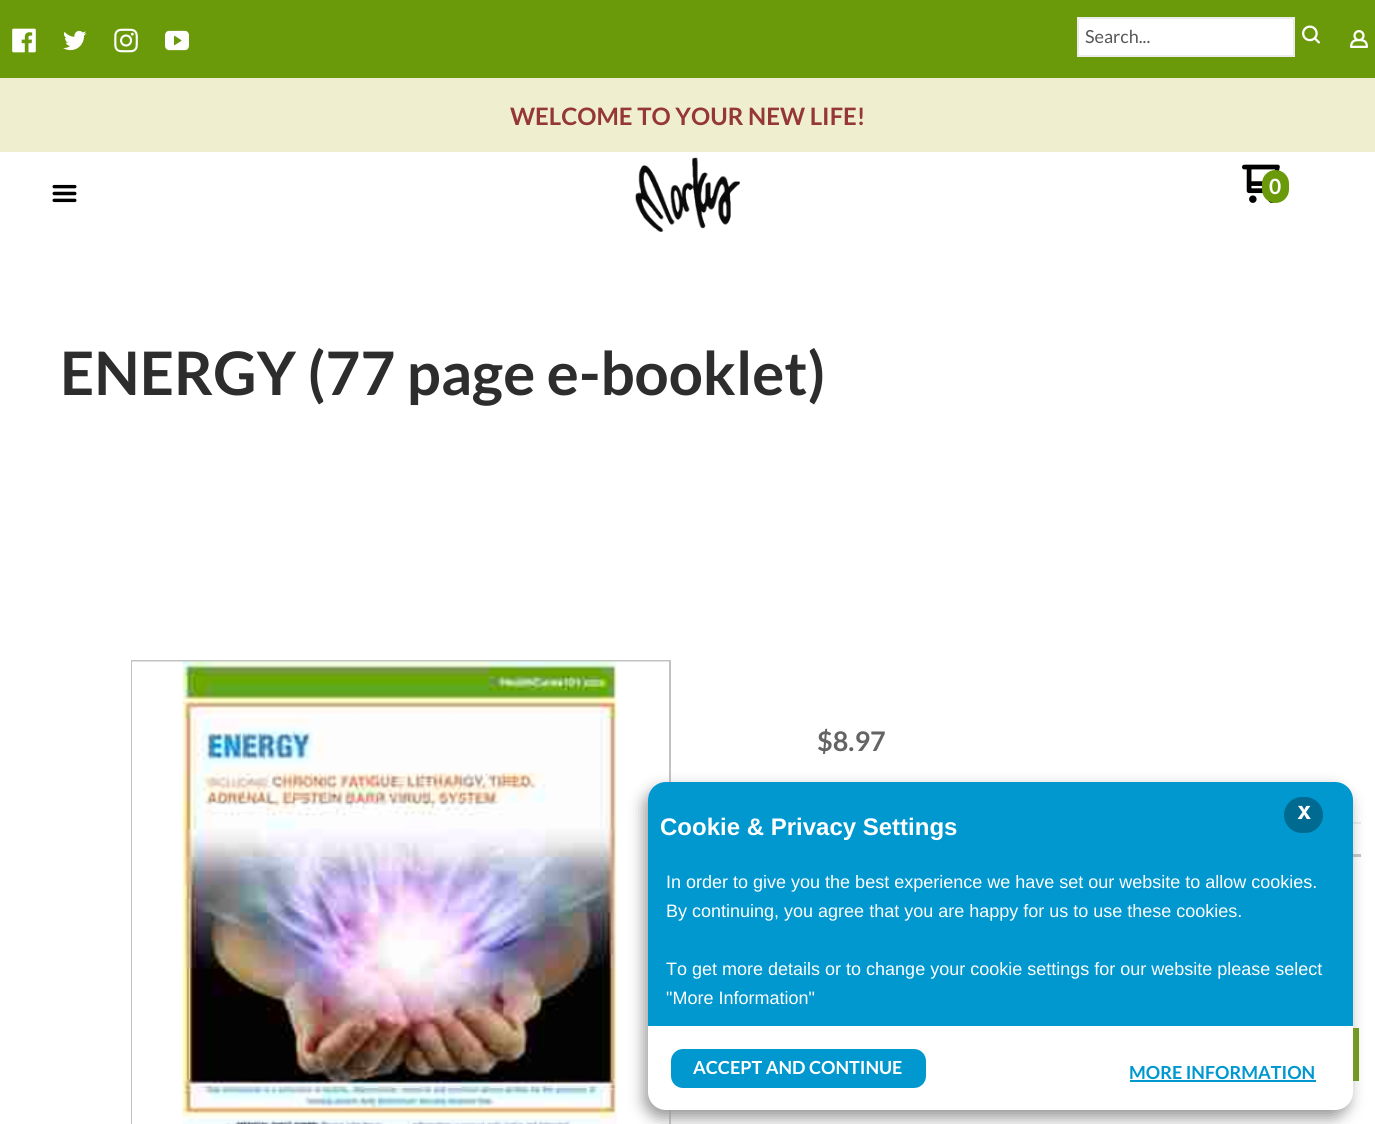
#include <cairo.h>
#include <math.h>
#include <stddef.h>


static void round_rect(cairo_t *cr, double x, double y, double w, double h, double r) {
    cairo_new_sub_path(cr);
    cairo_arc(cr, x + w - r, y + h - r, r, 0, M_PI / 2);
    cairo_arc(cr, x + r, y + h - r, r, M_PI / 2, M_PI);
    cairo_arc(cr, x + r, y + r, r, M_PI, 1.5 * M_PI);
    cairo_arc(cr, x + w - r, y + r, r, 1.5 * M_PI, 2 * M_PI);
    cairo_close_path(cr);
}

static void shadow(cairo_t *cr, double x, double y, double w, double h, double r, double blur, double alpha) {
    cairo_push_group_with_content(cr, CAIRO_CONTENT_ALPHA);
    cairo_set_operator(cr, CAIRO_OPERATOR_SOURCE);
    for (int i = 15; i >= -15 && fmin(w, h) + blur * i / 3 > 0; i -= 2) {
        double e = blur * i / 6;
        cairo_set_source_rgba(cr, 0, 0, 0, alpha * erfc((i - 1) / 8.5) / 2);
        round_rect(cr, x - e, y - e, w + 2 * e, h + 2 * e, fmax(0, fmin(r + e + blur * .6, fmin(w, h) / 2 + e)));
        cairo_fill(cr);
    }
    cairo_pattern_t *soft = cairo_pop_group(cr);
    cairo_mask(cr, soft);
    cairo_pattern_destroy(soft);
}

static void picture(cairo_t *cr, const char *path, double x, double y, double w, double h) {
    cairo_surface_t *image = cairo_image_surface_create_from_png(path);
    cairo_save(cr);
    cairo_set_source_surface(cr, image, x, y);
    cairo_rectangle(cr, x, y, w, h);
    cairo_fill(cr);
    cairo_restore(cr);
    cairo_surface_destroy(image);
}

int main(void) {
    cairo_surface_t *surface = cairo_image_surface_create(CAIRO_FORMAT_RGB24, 1375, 1124);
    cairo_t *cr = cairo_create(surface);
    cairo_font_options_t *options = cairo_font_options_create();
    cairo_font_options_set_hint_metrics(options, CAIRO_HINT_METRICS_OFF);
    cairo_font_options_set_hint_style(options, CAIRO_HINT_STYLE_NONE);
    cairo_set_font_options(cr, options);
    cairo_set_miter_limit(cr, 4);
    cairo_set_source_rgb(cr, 1, 1, 1);
    cairo_paint(cr);
    cairo_set_source_rgb(cr, 0.416, 0.604, 0.039);
    cairo_rectangle(cr, 0, 0, 1375, 78);
    cairo_fill(cr);
    picture(cr, "img1.png", 12, 28, 24, 25);
    picture(cr, "img2.png", 63, 30, 24, 21);
    picture(cr, "img3.png", 114, 28, 24, 25);
    picture(cr, "img4.png", 165, 30, 24, 21);
    cairo_set_source_rgb(cr, 1, 1, 1);
    cairo_rectangle(cr, 1078, 18, 216, 38);
    cairo_fill_preserve(cr);
    cairo_set_source_rgb(cr, 0.922, 0.922, 0.922);
    cairo_stroke(cr);
    cairo_select_font_face(cr, "Lato", CAIRO_FONT_SLANT_NORMAL, CAIRO_FONT_WEIGHT_NORMAL);
    cairo_set_font_size(cr, 18);
    cairo_set_source_rgb(cr, 0.341, 0.341, 0.341);
    cairo_move_to(cr, 1085, 43);
    cairo_show_text(cr, "Search...");
    picture(cr, "img5.png", 1302, 25, 18, 19);
    picture(cr, "img6.png", 1350, 30, 18, 18);
    cairo_set_source_rgb(cr, 0.937, 0.937, 0.816);
    cairo_rectangle(cr, 0, 78, 1375, 74);
    cairo_fill(cr);
    cairo_select_font_face(cr, "Lato", CAIRO_FONT_SLANT_NORMAL, CAIRO_FONT_WEIGHT_BOLD);
    cairo_set_font_size(cr, 24);
    cairo_set_source_rgb(cr, 0.584, 0.216, 0.204);
    cairo_move_to(cr, 510, 125);
    cairo_show_text(cr, "WELCOME TO YOUR NEW LIFE!");
    picture(cr, "img7.png", 52, 184, 25, 19);
    picture(cr, "img8.png", 635, 157, 105, 75);
    picture(cr, "img9.png", 1242, 164, 38, 39);
    cairo_set_source_rgb(cr, 0.416, 0.604, 0.039);
    round_rect(cr, 1262, 170, 27, 33, 13.5);
    cairo_fill(cr);
    cairo_set_font_size(cr, 21);
    cairo_set_source_rgb(cr, 1, 1, 1);
    cairo_move_to(cr, 1269, 194);
    cairo_show_text(cr, "0");
    cairo_set_font_size(cr, 60);
    cairo_set_source_rgb(cr, 0.176, 0.176, 0.176);
    cairo_move_to(cr, 60, 395);
    cairo_show_text(cr, "ENERGY (77 page e-booklet)");
    cairo_rectangle(cr, 132, 661, 538, 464);
    cairo_set_source_rgb(cr, 0.761, 0.761, 0.761);
    cairo_stroke(cr);
    picture(cr, "img10.png", 132, 661, 537, 463);
    cairo_set_source_rgb(cr, 0.922, 0.922, 0.922);
    cairo_rectangle(cr, 1353, 822, 8, 2);
    cairo_fill(cr);
    cairo_set_font_size(cr, 27);
    cairo_set_source_rgb(cr, 0.392, 0.392, 0.392);
    cairo_move_to(cr, 817, 751);
    cairo_show_text(cr, "$8.97");
    cairo_set_source_rgb(cr, 0.761, 0.761, 0.761);
    cairo_rectangle(cr, 1353, 854, 8, 3);
    cairo_fill(cr);
    cairo_set_source_rgb(cr, 0.416, 0.604, 0.039);
    cairo_rectangle(cr, 1353, 1028, 6, 53);
    cairo_fill(cr);
    cairo_set_source_rgb(cr, 0.6, 0.6, 0.6);
    shadow(cr, 644, 789, 705, 329, 18, 7.5, 1);
    cairo_set_source_rgb(cr, 1, 1, 1);
    round_rect(cr, 648, 782, 705, 328, 18);
    cairo_fill(cr);
    cairo_set_source_rgb(cr, 0, 0.596, 0.812);
    cairo_new_path(cr);
    cairo_move_to(cr, 666, 782);
    cairo_line_to(cr, 1335, 782);
    cairo_curve_to(cr, 1345, 782, 1353, 790, 1353, 800);
    cairo_line_to(cr, 1353, 1026);
    cairo_line_to(cr, 648, 1026);
    cairo_line_to(cr, 648, 800);
    cairo_curve_to(cr, 648, 790, 656, 782, 666, 782);
    cairo_close_path(cr);
    cairo_fill(cr);
    cairo_set_source_rgb(cr, 0, 0.416, 0.569);
    round_rect(cr, 1284, 797, 39, 36, 18);
    cairo_fill(cr);
    cairo_select_font_face(cr, "DejaVu Sans Mono", CAIRO_FONT_SLANT_NORMAL, CAIRO_FONT_WEIGHT_BOLD);
    cairo_set_font_size(cr, 24);
    cairo_set_source_rgb(cr, 1, 1, 1);
    cairo_move_to(cr, 1297, 819);
    cairo_show_text(cr, "x");
    cairo_select_font_face(cr, "Liberation Sans", CAIRO_FONT_SLANT_NORMAL, CAIRO_FONT_WEIGHT_BOLD);
    cairo_move_to(cr, 660, 835);
    cairo_show_text(cr, "Cookie & Privacy Settings");
    cairo_select_font_face(cr, "Liberation Sans", CAIRO_FONT_SLANT_NORMAL, CAIRO_FONT_WEIGHT_NORMAL);
    cairo_set_font_size(cr, 18);
    cairo_move_to(cr, 666, 888);
    cairo_show_text(cr, "In order to give you the best experience we have set our website to allow cookies.");
    cairo_move_to(cr, 666, 917);
    cairo_show_text(cr, "By continuing, you agree that you are happy for us to use these cookies.");
    cairo_move_to(cr, 666, 975);
    cairo_show_text(cr, "To get more details or to change your cookie settings for our website please select");
    cairo_move_to(cr, 666, 1004);
    cairo_show_text(cr, "\"More Information\"");
    cairo_set_source_rgb(cr, 0, 0.596, 0.812);
    round_rect(cr, 671, 1049, 255, 39, 12);
    cairo_fill(cr);
    cairo_select_font_face(cr, "Lato", CAIRO_FONT_SLANT_NORMAL, CAIRO_FONT_WEIGHT_BOLD);
    cairo_set_source_rgb(cr, 1, 1, 1);
    cairo_move_to(cr, 693, 1074);
    cairo_show_text(cr, "ACCEPT AND CONTINUE");
    cairo_set_source_rgb(cr, 0, 0.596, 0.812);
    cairo_move_to(cr, 1129, 1079);
    cairo_show_text(cr, "MORE INFORMATION");
    cairo_rectangle(cr, 1130, 1080, 186, 2);
    cairo_fill(cr);
    cairo_surface_write_to_png(surface, "page.png");
    cairo_font_options_destroy(options);
    cairo_destroy(cr);
    cairo_surface_destroy(surface);
    return 0;
}
